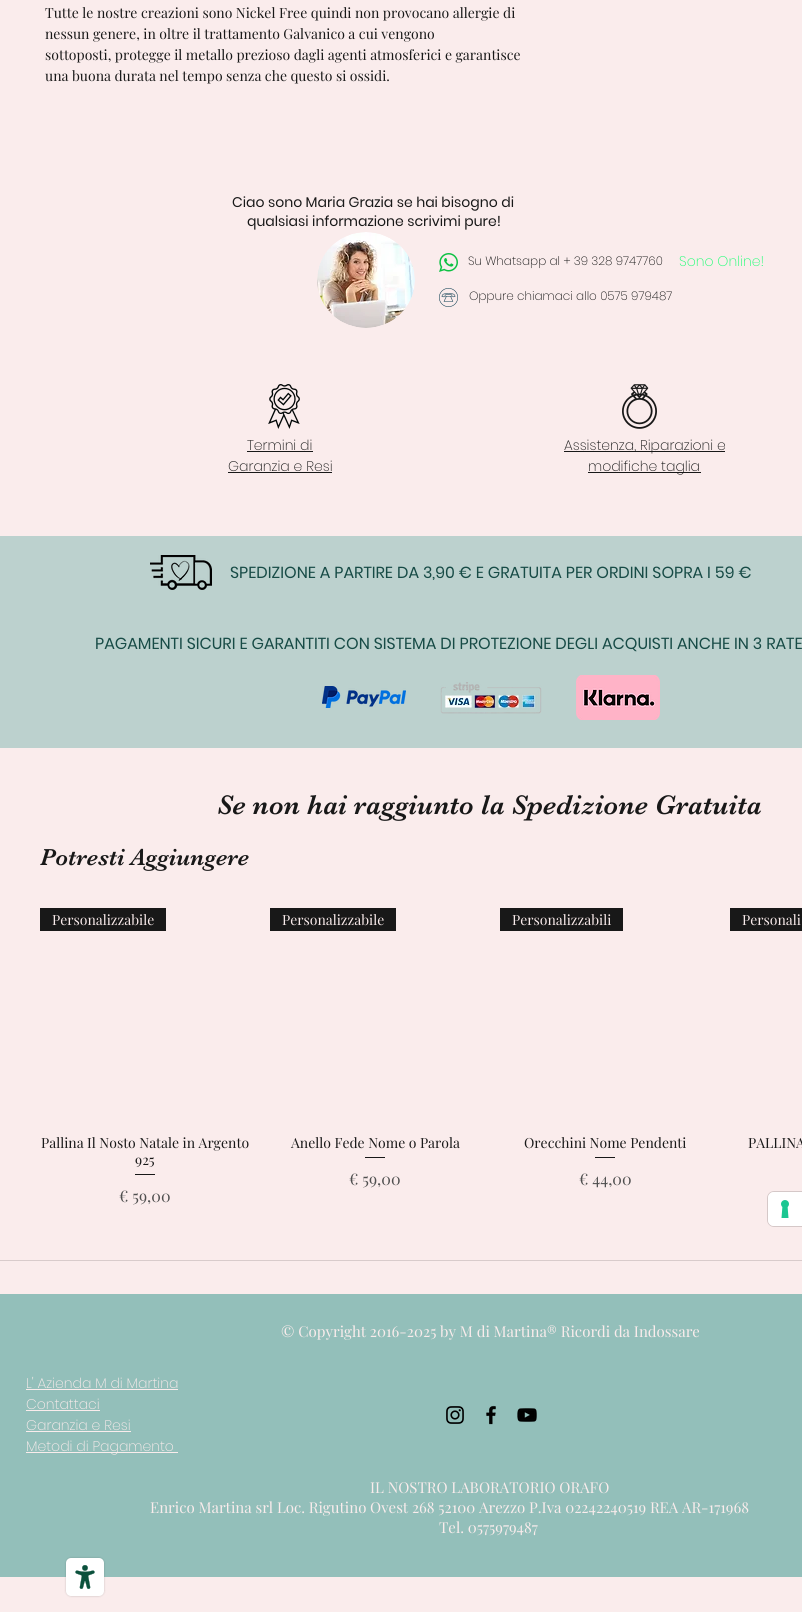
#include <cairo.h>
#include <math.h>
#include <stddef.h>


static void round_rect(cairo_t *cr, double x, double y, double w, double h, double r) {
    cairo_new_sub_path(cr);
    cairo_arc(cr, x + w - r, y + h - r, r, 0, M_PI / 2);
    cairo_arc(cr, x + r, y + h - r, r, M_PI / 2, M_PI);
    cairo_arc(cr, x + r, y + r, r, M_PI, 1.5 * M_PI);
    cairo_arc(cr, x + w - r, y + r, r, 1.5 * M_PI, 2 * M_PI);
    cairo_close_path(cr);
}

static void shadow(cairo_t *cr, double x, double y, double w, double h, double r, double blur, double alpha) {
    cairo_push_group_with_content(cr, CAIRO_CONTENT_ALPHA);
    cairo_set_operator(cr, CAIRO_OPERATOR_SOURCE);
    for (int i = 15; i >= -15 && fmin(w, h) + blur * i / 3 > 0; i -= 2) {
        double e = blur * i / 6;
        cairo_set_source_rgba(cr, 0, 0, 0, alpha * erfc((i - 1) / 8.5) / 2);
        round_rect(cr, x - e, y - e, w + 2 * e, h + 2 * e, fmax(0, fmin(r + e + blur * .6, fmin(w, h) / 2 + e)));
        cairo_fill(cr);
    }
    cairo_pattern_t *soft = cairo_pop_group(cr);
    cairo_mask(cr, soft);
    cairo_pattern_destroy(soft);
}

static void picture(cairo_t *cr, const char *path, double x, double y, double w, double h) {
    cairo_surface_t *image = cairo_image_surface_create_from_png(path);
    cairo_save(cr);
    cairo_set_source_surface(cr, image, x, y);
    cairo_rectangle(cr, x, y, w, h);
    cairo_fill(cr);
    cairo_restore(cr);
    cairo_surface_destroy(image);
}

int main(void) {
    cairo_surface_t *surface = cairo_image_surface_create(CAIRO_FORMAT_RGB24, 802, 1612);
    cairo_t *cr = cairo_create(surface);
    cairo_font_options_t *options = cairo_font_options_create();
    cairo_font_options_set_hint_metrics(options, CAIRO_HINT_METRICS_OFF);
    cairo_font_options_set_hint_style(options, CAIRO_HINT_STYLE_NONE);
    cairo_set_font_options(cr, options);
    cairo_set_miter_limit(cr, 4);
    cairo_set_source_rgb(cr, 0.98, 0.922, 0.922);
    cairo_paint(cr);
    cairo_select_font_face(cr, "Playfair Display", CAIRO_FONT_SLANT_NORMAL, CAIRO_FONT_WEIGHT_NORMAL);
    cairo_set_font_size(cr, 14);
    cairo_set_source_rgb(cr, 0.094, 0.094, 0.094);
    cairo_move_to(cr, 45, 18);
    cairo_show_text(cr, "Tutte le nostre creazioni sono Nickel Free quindi non provocano allergie di");
    cairo_move_to(cr, 45, 39);
    cairo_show_text(cr, "nessun genere, in oltre il trattamento Galvanico a cui vengono");
    cairo_move_to(cr, 45, 60);
    cairo_show_text(cr, "sottoposti, protegge il metallo prezioso dagli agenti atmosferici e garantisce");
    cairo_move_to(cr, 45, 81);
    cairo_show_text(cr, "una buona durata nel tempo senza che questo si ossidi.");
    cairo_select_font_face(cr, "Poppins", CAIRO_FONT_SLANT_NORMAL, CAIRO_FONT_WEIGHT_NORMAL);
    cairo_move_to(cr, 232, 207);
    cairo_show_text(cr, "Ciao sono Maria Grazia se hai bisogno di");
    cairo_move_to(cr, 247, 226);
    cairo_show_text(cr, "qualsiasi informazione scrivimi pure!");
    picture(cr, "img1.png", 317, 232, 98, 96);
    picture(cr, "img2.png", 439, 253, 19, 19);
    cairo_select_font_face(cr, "Poppins ExtraLight", CAIRO_FONT_SLANT_NORMAL, CAIRO_FONT_WEIGHT_NORMAL);
    cairo_set_font_size(cr, 12);
    cairo_move_to(cr, 468, 265);
    cairo_show_text(cr, "Su Whatsapp al + 39 328 9747760");
    cairo_set_font_size(cr, 14);
    cairo_set_source_rgb(cr, 0.129, 1, 0.463);
    cairo_move_to(cr, 679, 266);
    cairo_show_text(cr, "Sono Online!");
    picture(cr, "img3.png", 439, 288, 19, 19);
    cairo_set_font_size(cr, 12);
    cairo_set_source_rgb(cr, 0.094, 0.094, 0.094);
    cairo_move_to(cr, 469, 300);
    cairo_show_text(cr, "Oppure chiamaci allo 0575 979487");
    picture(cr, "img4.png", 268, 384, 32, 45);
    picture(cr, "img5.png", 622, 384, 35, 45);
    cairo_set_font_size(cr, 14);
    cairo_move_to(cr, 247, 450);
    cairo_show_text(cr, "Termini di");
    cairo_rectangle(cr, 247, 451, 66, 1);
    cairo_fill(cr);
    cairo_move_to(cr, 228, 471);
    cairo_show_text(cr, "Garanzia e Resi");
    cairo_rectangle(cr, 228, 472, 104, 1);
    cairo_fill(cr);
    cairo_rectangle(cr, 564, 451, 161, 1);
    cairo_fill(cr);
    cairo_move_to(cr, 564, 450);
    cairo_show_text(cr, "Assistenza, Riparazioni e");
    cairo_rectangle(cr, 588, 472, 113, 1);
    cairo_fill(cr);
    cairo_move_to(cr, 588, 471);
    cairo_show_text(cr, "modifiche taglia");
    cairo_set_source_rgb(cr, 0.737, 0.82, 0.808);
    cairo_rectangle(cr, 0, 536, 802, 212);
    cairo_fill(cr);
    picture(cr, "img7.png", 171, 560, 19, 21);
    picture(cr, "img6.png", 150, 555, 62, 35);
    cairo_select_font_face(cr, "Poppins", CAIRO_FONT_SLANT_NORMAL, CAIRO_FONT_WEIGHT_NORMAL);
    cairo_set_font_size(cr, 16);
    cairo_set_source_rgb(cr, 0.09, 0.294, 0.275);
    cairo_move_to(cr, 230, 578);
    cairo_show_text(cr, "SPEDIZIONE A PARTIRE DA 3,90 € E GRATUITA PER ORDINI SOPRA I 59 €");
    cairo_move_to(cr, 95, 649);
    cairo_show_text(cr, "PAGAMENTI SICURI E GARANTITI CON SISTEMA DI PROTEZIONE DEGLI ACQUISTI ANCHE IN 3 RATE");
    picture(cr, "img8.png", 322, 686, 84, 22);
    picture(cr, "img9.png", 440, 682, 102, 32);
    picture(cr, "img10.png", 576, 675, 84, 45);
    cairo_select_font_face(cr, "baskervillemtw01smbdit", CAIRO_FONT_SLANT_NORMAL, CAIRO_FONT_WEIGHT_NORMAL);
    cairo_set_font_size(cr, 28);
    cairo_set_source_rgb(cr, 0.094, 0.094, 0.094);
    cairo_move_to(cr, 217, 814);
    cairo_show_text(cr, "Se non hai raggiunto la Spedizione Gratuita");
    cairo_set_font_size(cr, 24);
    cairo_move_to(cr, 40, 865);
    cairo_show_text(cr, "Potresti Aggiungere");
    cairo_rectangle(cr, 40, 908, 126, 23);
    cairo_fill(cr);
    cairo_select_font_face(cr, "Playfair Display", CAIRO_FONT_SLANT_NORMAL, CAIRO_FONT_WEIGHT_NORMAL);
    cairo_set_font_size(cr, 14);
    cairo_set_source_rgb(cr, 0.98, 0.922, 0.922);
    cairo_move_to(cr, 52, 925);
    cairo_show_text(cr, "Personalizzabile");
    cairo_set_source_rgb(cr, 0.094, 0.094, 0.094);
    cairo_move_to(cr, 41, 1148);
    cairo_show_text(cr, "Pallina Il Nosto Natale in Argento");
    cairo_move_to(cr, 135, 1165);
    cairo_show_text(cr, "925");
    cairo_rectangle(cr, 135, 1174, 20, 1);
    cairo_fill(cr);
    cairo_set_font_size(cr, 16);
    cairo_set_source_rgb(cr, 0.31, 0.31, 0.31);
    cairo_move_to(cr, 119, 1202);
    cairo_show_text(cr, "€ 59,00");
    cairo_set_source_rgb(cr, 0.094, 0.094, 0.094);
    cairo_rectangle(cr, 270, 908, 126, 23);
    cairo_fill(cr);
    cairo_set_font_size(cr, 14);
    cairo_set_source_rgb(cr, 0.98, 0.922, 0.922);
    cairo_move_to(cr, 282, 925);
    cairo_show_text(cr, "Personalizzabile");
    cairo_set_source_rgb(cr, 0.094, 0.094, 0.094);
    cairo_move_to(cr, 291, 1148);
    cairo_show_text(cr, "Anello Fede Nome o Parola");
    cairo_rectangle(cr, 365, 1157, 20, 1);
    cairo_fill(cr);
    cairo_set_font_size(cr, 16);
    cairo_set_source_rgb(cr, 0.31, 0.31, 0.31);
    cairo_move_to(cr, 349, 1185);
    cairo_show_text(cr, "€ 59,00");
    cairo_set_source_rgb(cr, 0.094, 0.094, 0.094);
    cairo_rectangle(cr, 500, 908, 123, 23);
    cairo_fill(cr);
    cairo_set_font_size(cr, 14);
    cairo_set_source_rgb(cr, 0.98, 0.922, 0.922);
    cairo_move_to(cr, 512, 925);
    cairo_show_text(cr, "Personalizzabili");
    cairo_set_source_rgb(cr, 0.094, 0.094, 0.094);
    cairo_move_to(cr, 524, 1148);
    cairo_show_text(cr, "Orecchini Nome Pendenti");
    cairo_rectangle(cr, 595, 1157, 20, 1);
    cairo_fill(cr);
    cairo_set_font_size(cr, 16);
    cairo_set_source_rgb(cr, 0.31, 0.31, 0.31);
    cairo_move_to(cr, 579, 1185);
    cairo_show_text(cr, "€ 44,00");
    cairo_set_source_rgb(cr, 0.094, 0.094, 0.094);
    cairo_rectangle(cr, 730, 908, 72, 23);
    cairo_fill(cr);
    cairo_set_font_size(cr, 14);
    cairo_set_source_rgb(cr, 0.98, 0.922, 0.922);
    cairo_move_to(cr, 742, 925);
    cairo_show_text(cr, "Personali");
    cairo_set_source_rgb(cr, 0.094, 0.094, 0.094);
    cairo_move_to(cr, 748, 1148);
    cairo_show_text(cr, "PALLINA");
    cairo_set_source_rgb(cr, 0.847, 0.796, 0.796);
    cairo_rectangle(cr, 0, 1260, 802, 1);
    cairo_fill(cr);
    cairo_set_source_rgb(cr, 0.576, 0.749, 0.729);
    cairo_rectangle(cr, 0, 1294, 802, 283);
    cairo_fill(cr);
    cairo_set_font_size(cr, 15);
    cairo_set_source_rgb(cr, 0.98, 0.922, 0.922);
    cairo_move_to(cr, 281, 1337);
    cairo_show_text(cr, "© Copyright 2016-2025 by M di Martina® Ricordi da Indossare");
    cairo_select_font_face(cr, "Poppins ExtraLight", CAIRO_FONT_SLANT_NORMAL, CAIRO_FONT_WEIGHT_NORMAL);
    cairo_set_font_size(cr, 14);
    cairo_move_to(cr, 26, 1388);
    cairo_show_text(cr, "L' Azienda M di Martina");
    cairo_rectangle(cr, 26, 1389, 152, 1);
    cairo_fill(cr);
    cairo_move_to(cr, 26, 1409);
    cairo_show_text(cr, "Contattaci");
    cairo_rectangle(cr, 26, 1410, 74, 1);
    cairo_fill(cr);
    cairo_move_to(cr, 26, 1430);
    cairo_show_text(cr, "Garanzia e Resi");
    cairo_rectangle(cr, 26, 1431, 105, 1);
    cairo_fill(cr);
    cairo_rectangle(cr, 26, 1452, 152, 1);
    cairo_fill(cr);
    cairo_move_to(cr, 26, 1451);
    cairo_show_text(cr, "Metodi di Pagamento");
    picture(cr, "img11.png", 446, 1406, 18, 18);
    picture(cr, "img12.png", 486, 1405, 10, 20);
    picture(cr, "img13.png", 517, 1408, 20, 14);
    cairo_select_font_face(cr, "Playfair Display", CAIRO_FONT_SLANT_NORMAL, CAIRO_FONT_WEIGHT_NORMAL);
    cairo_set_font_size(cr, 15);
    cairo_move_to(cr, 370, 1493);
    cairo_show_text(cr, "IL NOSTRO LABORATORIO ORAFO");
    cairo_move_to(cr, 150, 1513);
    cairo_show_text(cr, "Enrico Martina srl Loc. Rigutino Ovest 268 52100 Arezzo P.Iva 02242240519 REA AR-171968");
    cairo_move_to(cr, 439, 1533);
    cairo_show_text(cr, "Tel. 0575979487");
    cairo_new_path(cr);
    cairo_move_to(cr, 774, 1191.5);
    cairo_line_to(cr, 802.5, 1191.5);
    cairo_line_to(cr, 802.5, 1226.5);
    cairo_line_to(cr, 774, 1226.5);
    cairo_curve_to(cr, 770.5, 1226.5, 767.5, 1223.5, 767.5, 1220);
    cairo_line_to(cr, 767.5, 1198);
    cairo_curve_to(cr, 767.5, 1194.5, 770.5, 1191.5, 774, 1191.5);
    cairo_close_path(cr);
    cairo_set_source_rgb(cr, 0.835, 0.784, 0.784);
    cairo_set_line_width(cr, 1);
    cairo_stroke(cr);
    cairo_set_source_rgb(cr, 1, 1, 1);
    cairo_new_path(cr);
    cairo_move_to(cr, 774, 1192);
    cairo_line_to(cr, 802, 1192);
    cairo_line_to(cr, 802, 1226);
    cairo_line_to(cr, 774, 1226);
    cairo_curve_to(cr, 770.5, 1226, 768, 1223.5, 768, 1220);
    cairo_line_to(cr, 768, 1198);
    cairo_curve_to(cr, 768, 1194.5, 770.5, 1192, 774, 1192);
    cairo_close_path(cr);
    cairo_fill(cr);
    picture(cr, "img14.png", 781, 1200, 8, 18);
    cairo_set_source_rgb(cr, 0, 0, 0);
    shadow(cr, 66, 1558, 38, 38, 5, 1, 0.2);
    cairo_set_source_rgb(cr, 1, 1, 1);
    round_rect(cr, 66, 1558, 38, 38, 5);
    cairo_fill(cr);
    picture(cr, "img15.png", 75, 1565, 20, 24);
    cairo_surface_write_to_png(surface, "page.png");
    cairo_font_options_destroy(options);
    cairo_destroy(cr);
    cairo_surface_destroy(surface);
    return 0;
}
